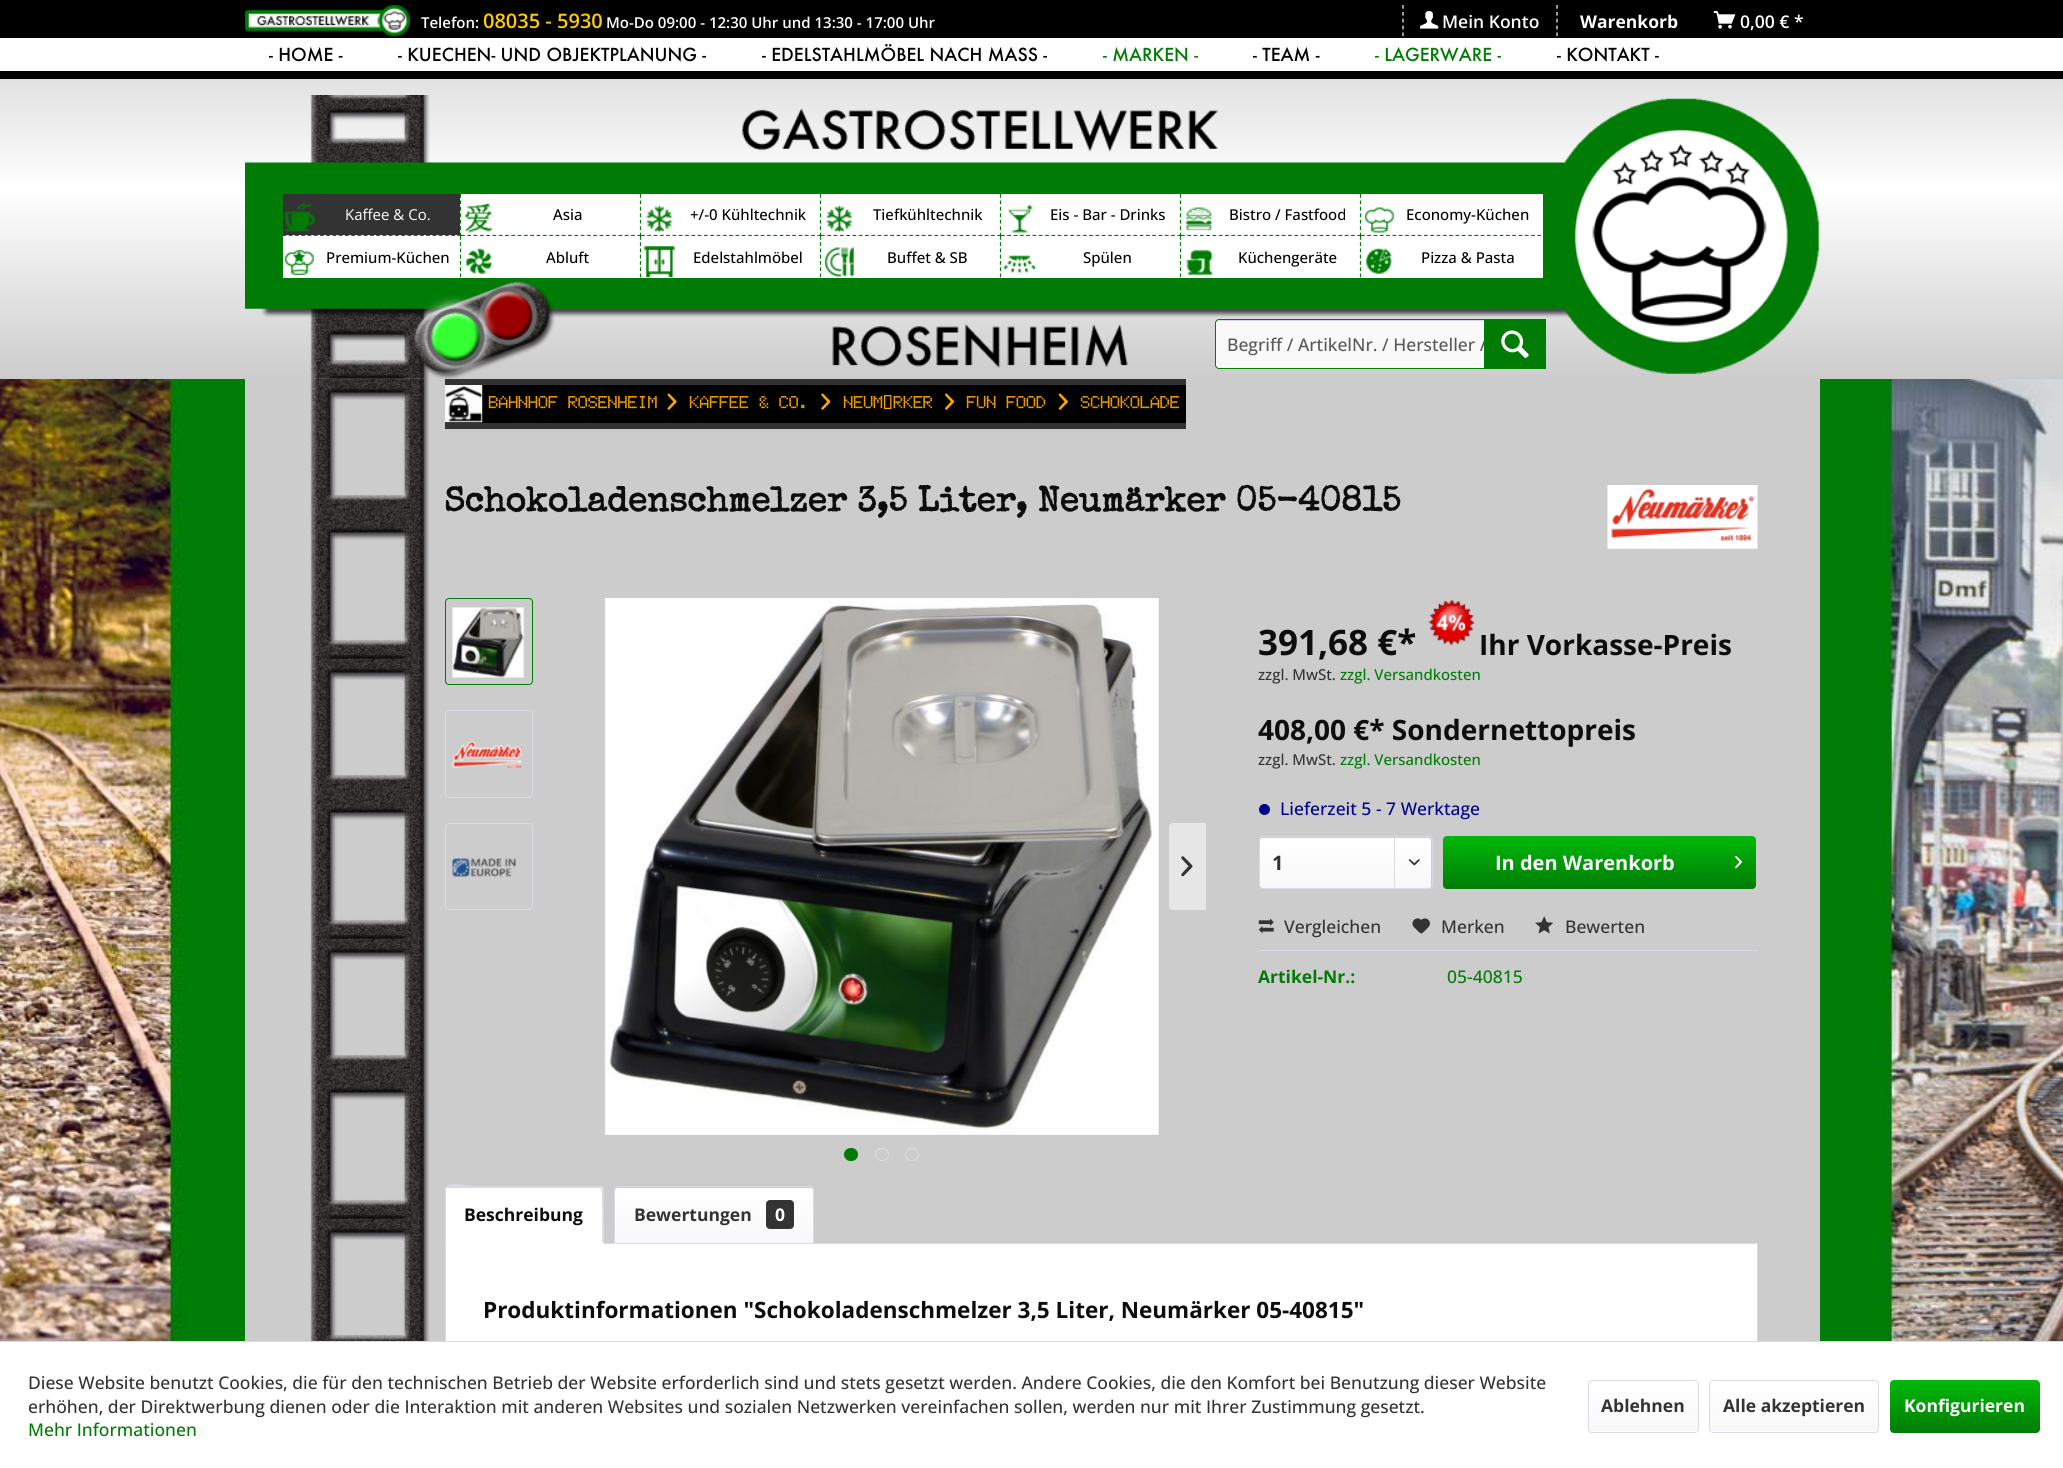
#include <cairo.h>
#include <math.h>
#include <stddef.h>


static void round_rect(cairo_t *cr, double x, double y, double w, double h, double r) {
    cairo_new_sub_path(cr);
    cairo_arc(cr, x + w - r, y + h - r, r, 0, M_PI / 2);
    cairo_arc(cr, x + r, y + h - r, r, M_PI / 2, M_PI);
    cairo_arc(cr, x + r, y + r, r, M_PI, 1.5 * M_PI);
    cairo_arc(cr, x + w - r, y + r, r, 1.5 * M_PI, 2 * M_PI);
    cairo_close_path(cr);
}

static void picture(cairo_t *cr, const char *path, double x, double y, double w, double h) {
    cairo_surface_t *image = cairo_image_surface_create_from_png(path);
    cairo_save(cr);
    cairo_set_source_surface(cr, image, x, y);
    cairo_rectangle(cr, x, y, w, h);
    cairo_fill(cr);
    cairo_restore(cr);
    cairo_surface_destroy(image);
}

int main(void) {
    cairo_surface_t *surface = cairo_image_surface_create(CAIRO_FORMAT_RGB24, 2063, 1468);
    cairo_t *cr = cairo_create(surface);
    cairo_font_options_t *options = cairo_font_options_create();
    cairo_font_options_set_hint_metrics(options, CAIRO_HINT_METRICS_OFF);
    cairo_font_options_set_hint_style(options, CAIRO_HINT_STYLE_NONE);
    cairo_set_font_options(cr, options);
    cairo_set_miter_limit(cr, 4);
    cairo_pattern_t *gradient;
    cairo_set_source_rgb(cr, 1, 1, 1);
    cairo_paint(cr);
    picture(cr, "img1.png", 0, 379, 2063, 962);
    gradient = cairo_pattern_create_linear(1032, 0, 1032, 379);
    cairo_pattern_add_color_stop_rgba(gradient, 0, 0.8, 0.8, 0.8, 1);
    cairo_pattern_add_color_stop_rgba(gradient, 0.5, 1, 1, 1, 1);
    cairo_pattern_add_color_stop_rgba(gradient, 1, 0.8, 0.8, 0.8, 1);
    cairo_set_source(cr, gradient);
    cairo_pattern_destroy(gradient);
    cairo_rectangle(cr, 0, 79, 2063, 300);
    cairo_fill(cr);
    cairo_set_source_rgb(cr, 0, 0, 0);
    cairo_rectangle(cr, 0, 0, 2063, 79);
    cairo_fill(cr);
    picture(cr, "img2.png", 245, 5, 165, 32);
    cairo_select_font_face(cr, "Open Sans SemiBold", CAIRO_FONT_SLANT_NORMAL, CAIRO_FONT_WEIGHT_NORMAL);
    cairo_set_font_size(cr, 15);
    cairo_set_source_rgb(cr, 1, 1, 1);
    cairo_move_to(cr, 421, 28);
    cairo_show_text(cr, "Telefon:");
    cairo_set_font_size(cr, 20);
    cairo_set_source_rgb(cr, 1, 0.8, 0);
    cairo_move_to(cr, 483, 28);
    cairo_show_text(cr, "08035 - 5930");
    cairo_set_font_size(cr, 15);
    cairo_set_source_rgb(cr, 1, 1, 1);
    cairo_move_to(cr, 606, 28);
    cairo_show_text(cr, "Mo-Do 09:00 - 12:30 Uhr und 13:30 - 17:00 Uhr");
    cairo_new_path(cr);
    cairo_move_to(cr, 1403, 5);
    cairo_line_to(cr, 1403, 36);
    cairo_set_line_width(cr, 1.2);
    cairo_set_dash(cr, (double[]){3.75, 3.12}, 2, 0);
    cairo_stroke(cr);
    picture(cr, "img3.png", 1420, 11, 19, 18);
    cairo_set_font_size(cr, 17.5);
    cairo_move_to(cr, 1442, 28);
    cairo_show_text(cr, "Mein Konto");
    cairo_new_path(cr);
    cairo_move_to(cr, 1557, 5);
    cairo_line_to(cr, 1557, 36);
    cairo_stroke(cr);
    cairo_select_font_face(cr, "Open Sans", CAIRO_FONT_SLANT_NORMAL, CAIRO_FONT_WEIGHT_BOLD);
    cairo_move_to(cr, 1580, 28);
    cairo_show_text(cr, "Warenkorb");
    picture(cr, "img4.png", 1713, 11, 23, 18);
    cairo_select_font_face(cr, "Open Sans SemiBold", CAIRO_FONT_SLANT_NORMAL, CAIRO_FONT_WEIGHT_NORMAL);
    cairo_move_to(cr, 1740, 28);
    cairo_show_text(cr, "0,00 € *");
    cairo_rectangle(cr, 0, 38, 2063, 33);
    cairo_fill(cr);
    cairo_select_font_face(cr, "Futura Medium", CAIRO_FONT_SLANT_NORMAL, CAIRO_FONT_WEIGHT_NORMAL);
    cairo_set_source_rgb(cr, 0, 0, 0);
    cairo_move_to(cr, 269, 61);
    cairo_show_text(cr, "- HOME -");
    cairo_move_to(cr, 398, 61);
    cairo_show_text(cr, "- KUECHEN- UND OBJEKTPLANUNG -");
    cairo_move_to(cr, 762, 61);
    cairo_show_text(cr, "- EDELSTAHLMÖBEL NACH MASS -");
    cairo_set_source_rgb(cr, 0, 0.486, 0.024);
    cairo_move_to(cr, 1103, 61);
    cairo_show_text(cr, "- MARKEN -");
    cairo_set_source_rgb(cr, 0, 0, 0);
    cairo_move_to(cr, 1253, 61);
    cairo_show_text(cr, "- TEAM -");
    cairo_set_source_rgb(cr, 0, 0.486, 0.024);
    cairo_move_to(cr, 1375, 61);
    cairo_show_text(cr, "- LAGERWARE -");
    cairo_set_source_rgb(cr, 0, 0, 0);
    cairo_move_to(cr, 1557, 61);
    cairo_show_text(cr, "- KONTAKT -");
    picture(cr, "img5.png", 245, 95, 1574, 284);
    cairo_set_source_rgb(cr, 1, 1, 1);
    cairo_rectangle(cr, 283, 194, 1260, 84);
    cairo_fill(cr);
    cairo_new_path(cr);
    cairo_move_to(cr, 460.5, 194);
    cairo_line_to(cr, 460.5, 236);
    cairo_set_source_rgb(cr, 0, 0.486, 0.024);
    cairo_set_dash(cr, (double[]){3.75, 2.71}, 2, 0);
    cairo_stroke(cr);
    cairo_save(cr);
    cairo_rectangle(cr, 283, 194, 1260, 42);
    cairo_clip(cr);
    cairo_new_path(cr);
    cairo_move_to(cr, 282.5, 235.5);
    cairo_line_to(cr, 461, 235.5);
    cairo_set_dash(cr, (double[]){3.75, 2.5}, 2, 0);
    cairo_stroke(cr);
    cairo_restore(cr);
    cairo_set_source_rgb(cr, 0.2, 0.2, 0.2);
    cairo_rectangle(cr, 283, 194, 177, 41);
    cairo_fill(cr);
    picture(cr, "img6.png", 284, 203, 31, 29);
    cairo_select_font_face(cr, "Open Sans", CAIRO_FONT_SLANT_NORMAL, CAIRO_FONT_WEIGHT_NORMAL);
    cairo_set_font_size(cr, 15);
    cairo_set_source_rgb(cr, 1, 1, 1);
    cairo_move_to(cr, 345, 220);
    cairo_show_text(cr, "Kaffee & Co.");
    cairo_new_path(cr);
    cairo_move_to(cr, 640.5, 194);
    cairo_line_to(cr, 640.5, 236);
    cairo_set_source_rgb(cr, 0, 0.486, 0.024);
    cairo_stroke(cr);
    cairo_save(cr);
    cairo_rectangle(cr, 283, 194, 1260, 42);
    cairo_clip(cr);
    cairo_new_path(cr);
    cairo_move_to(cr, 461, 235.5);
    cairo_line_to(cr, 641, 235.5);
    cairo_set_dash(cr, (double[]){3.75, 2.55}, 2, 0);
    cairo_stroke(cr);
    cairo_restore(cr);
    picture(cr, "img7.png", 464, 203, 29, 30);
    cairo_select_font_face(cr, "Open Sans Medium", CAIRO_FONT_SLANT_NORMAL, CAIRO_FONT_WEIGHT_NORMAL);
    cairo_set_source_rgb(cr, 0, 0, 0);
    cairo_move_to(cr, 553, 220);
    cairo_show_text(cr, "Asia");
    cairo_new_path(cr);
    cairo_move_to(cr, 820.5, 194);
    cairo_line_to(cr, 820.5, 236);
    cairo_set_source_rgb(cr, 0, 0.486, 0.024);
    cairo_stroke(cr);
    cairo_save(cr);
    cairo_rectangle(cr, 283, 194, 1260, 42);
    cairo_clip(cr);
    cairo_new_path(cr);
    cairo_move_to(cr, 641, 235.5);
    cairo_line_to(cr, 821, 235.5);
    cairo_set_dash(cr, (double[]){3.75, 2.55}, 2, 0);
    cairo_stroke(cr);
    cairo_restore(cr);
    picture(cr, "img8.png", 646, 205, 27, 27);
    cairo_set_source_rgb(cr, 0, 0, 0);
    cairo_move_to(cr, 690, 220);
    cairo_show_text(cr, "+/-0 Kühltechnik");
    cairo_new_path(cr);
    cairo_move_to(cr, 1000.5, 194);
    cairo_line_to(cr, 1000.5, 236);
    cairo_set_source_rgb(cr, 0, 0.486, 0.024);
    cairo_stroke(cr);
    cairo_save(cr);
    cairo_rectangle(cr, 283, 194, 1260, 42);
    cairo_clip(cr);
    cairo_new_path(cr);
    cairo_move_to(cr, 821, 235.5);
    cairo_line_to(cr, 1001, 235.5);
    cairo_set_dash(cr, (double[]){3.75, 2.55}, 2, 0);
    cairo_stroke(cr);
    cairo_restore(cr);
    picture(cr, "img9.png", 826, 205, 27, 27);
    cairo_set_source_rgb(cr, 0, 0, 0);
    cairo_move_to(cr, 873, 220);
    cairo_show_text(cr, "Tiefkühltechnik");
    cairo_new_path(cr);
    cairo_move_to(cr, 1180.5, 194);
    cairo_line_to(cr, 1180.5, 236);
    cairo_set_source_rgb(cr, 0, 0.486, 0.024);
    cairo_stroke(cr);
    cairo_save(cr);
    cairo_rectangle(cr, 283, 194, 1260, 42);
    cairo_clip(cr);
    cairo_new_path(cr);
    cairo_move_to(cr, 1001, 235.5);
    cairo_line_to(cr, 1181, 235.5);
    cairo_set_dash(cr, (double[]){3.75, 2.55}, 2, 0);
    cairo_stroke(cr);
    cairo_restore(cr);
    picture(cr, "img10.png", 1008, 204, 25, 29);
    cairo_set_source_rgb(cr, 0, 0, 0);
    cairo_move_to(cr, 1050, 220);
    cairo_show_text(cr, "Eis - Bar - Drinks");
    cairo_new_path(cr);
    cairo_move_to(cr, 1360.5, 194);
    cairo_line_to(cr, 1360.5, 236);
    cairo_set_source_rgb(cr, 0, 0.486, 0.024);
    cairo_stroke(cr);
    cairo_save(cr);
    cairo_rectangle(cr, 283, 194, 1260, 42);
    cairo_clip(cr);
    cairo_new_path(cr);
    cairo_move_to(cr, 1181, 235.5);
    cairo_line_to(cr, 1361, 235.5);
    cairo_set_dash(cr, (double[]){3.75, 2.55}, 2, 0);
    cairo_stroke(cr);
    cairo_restore(cr);
    picture(cr, "img11.png", 1186, 207, 26, 24);
    cairo_set_source_rgb(cr, 0, 0, 0);
    cairo_move_to(cr, 1229, 220);
    cairo_show_text(cr, "Bistro / Fastfood");
    cairo_save(cr);
    cairo_rectangle(cr, 283, 194, 1260, 42);
    cairo_clip(cr);
    cairo_new_path(cr);
    cairo_move_to(cr, 1361, 235.5);
    cairo_line_to(cr, 1541, 235.5);
    cairo_set_source_rgb(cr, 0, 0.486, 0.024);
    cairo_set_dash(cr, (double[]){3.75, 2.55}, 2, 0);
    cairo_stroke(cr);
    cairo_restore(cr);
    picture(cr, "img12.png", 1364, 207, 30, 26);
    cairo_move_to(cr, 1406, 220);
    cairo_show_text(cr, "Economy-Küchen");
    cairo_new_path(cr);
    cairo_move_to(cr, 460.5, 236);
    cairo_line_to(cr, 460.5, 277.5);
    cairo_set_source_rgb(cr, 0, 0.486, 0.024);
    cairo_set_dash(cr, (double[]){3.75, 2.5}, 2, 0);
    cairo_stroke(cr);
    picture(cr, "img13.png", 284, 249, 30, 27);
    cairo_set_source_rgb(cr, 0, 0, 0);
    cairo_move_to(cr, 326, 263);
    cairo_show_text(cr, "Premium-Küchen");
    cairo_new_path(cr);
    cairo_move_to(cr, 640.5, 236);
    cairo_line_to(cr, 640.5, 277.5);
    cairo_set_source_rgb(cr, 0, 0.486, 0.024);
    cairo_stroke(cr);
    picture(cr, "img14.png", 466, 248, 26, 26);
    cairo_set_source_rgb(cr, 0, 0, 0);
    cairo_move_to(cr, 546, 263);
    cairo_show_text(cr, "Abluft");
    cairo_new_path(cr);
    cairo_move_to(cr, 820.5, 236);
    cairo_line_to(cr, 820.5, 277.5);
    cairo_set_source_rgb(cr, 0, 0.486, 0.024);
    cairo_stroke(cr);
    picture(cr, "img15.png", 643, 246, 32, 32);
    cairo_set_source_rgb(cr, 0, 0, 0);
    cairo_move_to(cr, 693, 263);
    cairo_show_text(cr, "Edelstahlmöbel");
    cairo_new_path(cr);
    cairo_move_to(cr, 1000.5, 236);
    cairo_line_to(cr, 1000.5, 277.5);
    cairo_set_source_rgb(cr, 0, 0.486, 0.024);
    cairo_stroke(cr);
    picture(cr, "img16.png", 824, 247, 30, 30);
    cairo_set_source_rgb(cr, 0, 0, 0);
    cairo_move_to(cr, 887, 263);
    cairo_show_text(cr, "Buffet & SB");
    cairo_new_path(cr);
    cairo_move_to(cr, 1180.5, 236);
    cairo_line_to(cr, 1180.5, 277.5);
    cairo_set_source_rgb(cr, 0, 0.486, 0.024);
    cairo_stroke(cr);
    picture(cr, "img17.png", 1003, 255, 32, 18);
    cairo_set_source_rgb(cr, 0, 0, 0);
    cairo_move_to(cr, 1083, 263);
    cairo_show_text(cr, "Spülen");
    cairo_new_path(cr);
    cairo_move_to(cr, 1360.5, 236);
    cairo_line_to(cr, 1360.5, 277.5);
    cairo_set_source_rgb(cr, 0, 0.486, 0.024);
    cairo_stroke(cr);
    picture(cr, "img18.png", 1186, 249, 27, 27);
    cairo_set_source_rgb(cr, 0, 0, 0);
    cairo_move_to(cr, 1238, 263);
    cairo_show_text(cr, "Küchengeräte");
    picture(cr, "img19.png", 1366, 248, 26, 26);
    cairo_move_to(cr, 1421, 263);
    cairo_show_text(cr, "Pizza & Pasta");
    cairo_set_source_rgb(cr, 0.973, 0.973, 0.98);
    round_rect(cr, 1215, 319, 331, 50, 4);
    cairo_fill(cr);
    cairo_set_source_rgb(cr, 0.855, 0.855, 0.898);
    cairo_new_path(cr);
    cairo_move_to(cr, 1219, 321);
    cairo_line_to(cr, 1542, 321);
    cairo_curve_to(cr, 1544, 321, 1545, 322, 1545, 324);
    cairo_line_to(cr, 1545, 322);
    cairo_curve_to(cr, 1545, 321, 1544, 320, 1542, 320);
    cairo_line_to(cr, 1218, 320);
    cairo_curve_to(cr, 1217, 320, 1216, 321, 1216, 322);
    cairo_line_to(cr, 1216, 324);
    cairo_curve_to(cr, 1216, 322, 1217, 321, 1219, 321);
    cairo_close_path(cr);
    cairo_fill(cr);
    round_rect(cr, 1215.5, 319.5, 330, 49, 3.5);
    cairo_set_source_rgb(cr, 0, 0.486, 0.024);
    cairo_set_line_width(cr, 1);
    cairo_set_dash(cr, NULL, 0, 0);
    cairo_stroke(cr);
    cairo_set_font_size(cr, 17.5);
    cairo_set_source_rgb(cr, 0.349, 0.349, 0.349);
    cairo_move_to(cr, 1227, 351);
    cairo_show_text(cr, "Begriff / ArtikelNr. / Hersteller /");
    cairo_set_source_rgb(cr, 0, 0.486, 0.024);
    cairo_rectangle(cr, 1484, 319, 62, 50);
    cairo_fill(cr);
    picture(cr, "img20.png", 1501, 330, 28, 28);
    cairo_set_source_rgb(cr, 0.8, 0.8, 0.8);
    cairo_rectangle(cr, 245, 379, 1575, 962);
    cairo_fill(cr);
    picture(cr, "img21.png", 310, 378, 120, 963);
    cairo_set_source_rgb(cr, 0, 0, 0);
    cairo_rectangle(cr, 445, 385, 741, 38);
    cairo_fill(cr);
    cairo_set_source_rgb(cr, 0.2, 0.2, 0.2);
    cairo_rectangle(cr, 445, 379, 741, 6);
    cairo_fill(cr);
    cairo_rectangle(cr, 445, 423, 741, 6);
    cairo_fill(cr);
    picture(cr, "img22.png", 445, 385, 38, 38);
    cairo_select_font_face(cr, "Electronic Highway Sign", CAIRO_FONT_SLANT_NORMAL, CAIRO_FONT_WEIGHT_NORMAL);
    cairo_set_font_size(cr, 16.25);
    cairo_set_source_rgb(cr, 1, 0.647, 0);
    cairo_move_to(cr, 488, 409);
    cairo_show_text(cr, "Bahnhof Rosenheim");
    picture(cr, "img23.png", 667, 393, 10, 17);
    cairo_move_to(cr, 689, 409);
    cairo_show_text(cr, "Kaffee & Co.");
    picture(cr, "img24.png", 821, 393, 10, 17);
    cairo_move_to(cr, 843, 409);
    cairo_show_text(cr, "Neumärker");
    picture(cr, "img25.png", 945, 393, 10, 17);
    cairo_move_to(cr, 966, 409);
    cairo_show_text(cr, "Fun Food");
    picture(cr, "img26.png", 1058, 393, 10, 17);
    cairo_move_to(cr, 1080, 409);
    cairo_show_text(cr, "Schokolade");
    cairo_select_font_face(cr, "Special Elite", CAIRO_FONT_SLANT_NORMAL, CAIRO_FONT_WEIGHT_BOLD);
    cairo_set_font_size(cr, 35);
    cairo_set_source_rgb(cr, 0.051, 0.051, 0.051);
    cairo_move_to(cr, 444, 511);
    cairo_show_text(cr, "Schokoladenschmelzer 3,5 Liter, Neumärker 05-40815");
    picture(cr, "img27.png", 1607, 485, 151, 64);
    round_rect(cr, 445.5, 598.5, 87, 86, 3.5);
    cairo_set_source_rgb(cr, 0, 0.486, 0.024);
    cairo_stroke(cr);
    picture(cr, "img28.png", 452, 607, 73, 71);
    round_rect(cr, 445.5, 710.5, 87, 87, 3.5);
    cairo_set_source_rgb(cr, 0.855, 0.855, 0.898);
    cairo_stroke(cr);
    picture(cr, "img29.png", 452, 741, 72, 28);
    round_rect(cr, 445.5, 823.5, 87, 86, 3.5);
    cairo_stroke(cr);
    picture(cr, "img30.png", 452, 858, 65, 19);
    picture(cr, "img31.png", 604, 598, 555, 537);
    cairo_set_source_rgb(cr, 0.902, 0.902, 0.902);
    cairo_new_path(cr);
    cairo_move_to(cr, 1172.5, 824);
    cairo_line_to(cr, 1205, 824);
    cairo_line_to(cr, 1205, 909);
    cairo_line_to(cr, 1172.5, 909);
    cairo_curve_to(cr, 1171, 909, 1170, 908, 1170, 906.5);
    cairo_line_to(cr, 1170, 826.5);
    cairo_curve_to(cr, 1170, 825, 1171, 824, 1172.5, 824);
    cairo_close_path(cr);
    cairo_fill(cr);
    cairo_new_path(cr);
    cairo_move_to(cr, 1173, 823.5);
    cairo_line_to(cr, 1205.5, 823.5);
    cairo_line_to(cr, 1205.5, 909.5);
    cairo_line_to(cr, 1173, 909.5);
    cairo_curve_to(cr, 1171, 909.5, 1169.5, 908, 1169.5, 906);
    cairo_line_to(cr, 1169.5, 827);
    cairo_curve_to(cr, 1169.5, 825, 1171, 823.5, 1173, 823.5);
    cairo_close_path(cr);
    cairo_set_source_rgba(cr, 1, 1, 1, 0.5);
    cairo_stroke(cr);
    picture(cr, "img32.png", 1181, 856, 12, 21);
    cairo_set_source_rgb(cr, 0, 0.486, 0.024);
    round_rect(cr, 844.5, 1148.5, 13, 12, 6);
    cairo_fill_preserve(cr);
    cairo_stroke(cr);
    round_rect(cr, 875.5, 1148.5, 13, 12, 6);
    cairo_set_source_rgb(cr, 0.855, 0.855, 0.898);
    cairo_stroke(cr);
    round_rect(cr, 905.5, 1148.5, 13, 12, 6);
    cairo_stroke(cr);
    cairo_select_font_face(cr, "Open Sans", CAIRO_FONT_SLANT_NORMAL, CAIRO_FONT_WEIGHT_BOLD);
    cairo_set_source_rgb(cr, 0.051, 0.051, 0.051);
    cairo_move_to(cr, 1258, 655);
    cairo_show_text(cr, "391,68 €*");
    picture(cr, "img33.png", 1428, 599, 47, 47);
    cairo_set_font_size(cr, 28);
    cairo_move_to(cr, 1479, 655);
    cairo_show_text(cr, "Ihr Vorkasse-Preis");
    cairo_select_font_face(cr, "Open Sans Medium", CAIRO_FONT_SLANT_NORMAL, CAIRO_FONT_WEIGHT_NORMAL);
    cairo_set_font_size(cr, 15);
    cairo_set_source_rgb(cr, 0.2, 0.2, 0.2);
    cairo_move_to(cr, 1258, 680);
    cairo_show_text(cr, "zzgl. MwSt.");
    cairo_set_source_rgb(cr, 0, 0.486, 0.024);
    cairo_move_to(cr, 1340, 680);
    cairo_show_text(cr, "zzgl. Versandkosten");
    cairo_select_font_face(cr, "Open Sans", CAIRO_FONT_SLANT_NORMAL, CAIRO_FONT_WEIGHT_BOLD);
    cairo_set_font_size(cr, 28);
    cairo_set_source_rgb(cr, 0.051, 0.051, 0.051);
    cairo_move_to(cr, 1258, 740);
    cairo_show_text(cr, "408,00 €* Sondernettopreis");
    cairo_select_font_face(cr, "Open Sans Medium", CAIRO_FONT_SLANT_NORMAL, CAIRO_FONT_WEIGHT_NORMAL);
    cairo_set_font_size(cr, 15);
    cairo_set_source_rgb(cr, 0.2, 0.2, 0.2);
    cairo_move_to(cr, 1258, 765);
    cairo_show_text(cr, "zzgl. MwSt.");
    cairo_set_source_rgb(cr, 0, 0.486, 0.024);
    cairo_move_to(cr, 1340, 765);
    cairo_show_text(cr, "zzgl. Versandkosten");
    cairo_set_source_rgb(cr, 0, 0, 0.545);
    cairo_new_path(cr);
    cairo_arc(cr, 1264.5, 809.5, 5.5, 0, 2 * M_PI);
    cairo_fill(cr);
    cairo_set_font_size(cr, 17.5);
    cairo_move_to(cr, 1280, 815);
    cairo_show_text(cr, "Lieferzeit 5 - 7 Werktage");
    gradient = cairo_pattern_create_linear(1346, 838, 1346, 888);
    cairo_pattern_add_color_stop_rgba(gradient, 0, 1, 1, 1, 1);
    cairo_pattern_add_color_stop_rgba(gradient, 1, 0.973, 0.973, 0.98, 1);
    cairo_set_source(cr, gradient);
    cairo_pattern_destroy(gradient);
    round_rect(cr, 1260, 838, 171, 50, 2.5);
    cairo_fill(cr);
    round_rect(cr, 1259.5, 836.5, 173, 52, 3.5);
    cairo_set_source_rgb(cr, 0.855, 0.855, 0.898);
    cairo_stroke(cr);
    cairo_select_font_face(cr, "Open Sans", CAIRO_FONT_SLANT_NORMAL, CAIRO_FONT_WEIGHT_BOLD);
    cairo_set_font_size(cr, 20);
    cairo_set_source_rgb(cr, 0.2, 0.2, 0.2);
    cairo_move_to(cr, 1272, 870);
    cairo_show_text(cr, "1");
    cairo_set_source_rgb(cr, 0.855, 0.855, 0.898);
    cairo_rectangle(cr, 1394, 838, 1, 50);
    cairo_fill(cr);
    picture(cr, "img34.png", 1408, 859, 12, 7);
    gradient = cairo_pattern_create_linear(1599, 836, 1599, 889);
    cairo_pattern_add_color_stop_rgba(gradient, 0, 0, 0.725, 0.035, 1);
    cairo_pattern_add_color_stop_rgba(gradient, 1, 0, 0.486, 0.024, 1);
    cairo_set_source(cr, gradient);
    cairo_pattern_destroy(gradient);
    round_rect(cr, 1443, 836, 313, 53, 4);
    cairo_fill(cr);
    cairo_set_source_rgb(cr, 1, 1, 1);
    cairo_move_to(cr, 1495, 870);
    cairo_show_text(cr, "In den Warenkorb");
    picture(cr, "img35.png", 1735, 855, 7, 14);
    cairo_set_source_rgb(cr, 0.855, 0.855, 0.898);
    cairo_rectangle(cr, 1259, 950, 499, 1);
    cairo_fill(cr);
    picture(cr, "img36.png", 1258, 918, 16, 16);
    cairo_select_font_face(cr, "Open Sans Medium", CAIRO_FONT_SLANT_NORMAL, CAIRO_FONT_WEIGHT_NORMAL);
    cairo_set_font_size(cr, 17.5);
    cairo_set_source_rgb(cr, 0.2, 0.2, 0.2);
    cairo_move_to(cr, 1284, 933);
    cairo_show_text(cr, "Vergleichen");
    picture(cr, "img37.png", 1412, 918, 18, 16);
    cairo_move_to(cr, 1441, 933);
    cairo_show_text(cr, "Merken");
    picture(cr, "img38.png", 1535, 916, 19, 18);
    cairo_move_to(cr, 1565, 933);
    cairo_show_text(cr, "Bewerten");
    cairo_select_font_face(cr, "Open Sans", CAIRO_FONT_SLANT_NORMAL, CAIRO_FONT_WEIGHT_BOLD);
    cairo_set_source_rgb(cr, 0, 0.486, 0.024);
    cairo_move_to(cr, 1258, 983);
    cairo_show_text(cr, "Artikel-Nr.:");
    cairo_select_font_face(cr, "Open Sans Medium", CAIRO_FONT_SLANT_NORMAL, CAIRO_FONT_WEIGHT_NORMAL);
    cairo_move_to(cr, 1447, 983);
    cairo_show_text(cr, "05-40815");
    cairo_set_source_rgb(cr, 1, 1, 1);
    cairo_rectangle(cr, 446, 1244, 1311, 97);
    cairo_fill(cr);
    cairo_rectangle(cr, 445.5, 1243.5, 1312, 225);
    cairo_set_source_rgb(cr, 0.855, 0.855, 0.898);
    cairo_stroke(cr);
    cairo_set_source_rgb(cr, 1, 1, 1);
    cairo_new_path(cr);
    cairo_move_to(cr, 449, 1186);
    cairo_line_to(cr, 600, 1186);
    cairo_curve_to(cr, 602, 1186, 604, 1188, 604, 1190);
    cairo_line_to(cr, 604, 1244);
    cairo_line_to(cr, 445, 1244);
    cairo_line_to(cr, 445, 1190);
    cairo_curve_to(cr, 445, 1188, 447, 1186, 449, 1186);
    cairo_close_path(cr);
    cairo_fill(cr);
    cairo_set_source_rgb(cr, 0.855, 0.855, 0.898);
    cairo_new_path(cr);
    cairo_move_to(cr, 449, 1188);
    cairo_line_to(cr, 447, 1188);
    cairo_line_to(cr, 446, 1187);
    cairo_curve_to(cr, 452, 1181, 464, 1186, 473, 1186);
    cairo_line_to(cr, 601, 1186);
    cairo_line_to(cr, 603, 1187);
    cairo_line_to(cr, 601, 1189);
    cairo_line_to(cr, 600, 1188);
    cairo_close_path(cr);
    cairo_fill(cr);
    cairo_new_path(cr);
    cairo_move_to(cr, 603, 1187);
    cairo_line_to(cr, 604, 1189);
    cairo_line_to(cr, 604, 1244);
    cairo_line_to(cr, 602, 1242);
    cairo_curve_to(cr, 602, 1236, 603, 1190, 601, 1189);
    cairo_close_path(cr);
    cairo_fill(cr);
    cairo_set_source_rgb(cr, 1, 1, 1);
    cairo_new_path(cr);
    cairo_move_to(cr, 604, 1244);
    cairo_line_to(cr, 602, 1242);
    cairo_line_to(cr, 447, 1242);
    cairo_line_to(cr, 445, 1244);
    cairo_close_path(cr);
    cairo_fill(cr);
    cairo_set_source_rgb(cr, 0.855, 0.855, 0.898);
    cairo_new_path(cr);
    cairo_move_to(cr, 445, 1244);
    cairo_line_to(cr, 447, 1242);
    cairo_line_to(cr, 446, 1242);
    cairo_line_to(cr, 446, 1190);
    cairo_line_to(cr, 447, 1188);
    cairo_line_to(cr, 446, 1187);
    cairo_line_to(cr, 445, 1190);
    cairo_close_path(cr);
    cairo_fill(cr);
    cairo_select_font_face(cr, "Open Sans", CAIRO_FONT_SLANT_NORMAL, CAIRO_FONT_WEIGHT_BOLD);
    cairo_set_source_rgb(cr, 0.051, 0.051, 0.051);
    cairo_move_to(cr, 464, 1221);
    cairo_show_text(cr, "Beschreibung");
    gradient = cairo_pattern_create_linear(714, 1188, 714, 1243);
    cairo_pattern_add_color_stop_rgba(gradient, 0, 1, 1, 1, 1);
    cairo_pattern_add_color_stop_rgba(gradient, 1, 0.973, 0.973, 0.98, 1);
    cairo_set_source(cr, gradient);
    cairo_pattern_destroy(gradient);
    cairo_new_path(cr);
    cairo_move_to(cr, 617.5, 1188);
    cairo_line_to(cr, 810.5, 1188);
    cairo_curve_to(cr, 812, 1188, 813, 1189, 813, 1190.5);
    cairo_line_to(cr, 813, 1243);
    cairo_line_to(cr, 615, 1243);
    cairo_line_to(cr, 615, 1190.5);
    cairo_curve_to(cr, 615, 1189, 616, 1188, 617.5, 1188);
    cairo_close_path(cr);
    cairo_fill(cr);
    cairo_new_path(cr);
    cairo_move_to(cr, 618, 1186.5);
    cairo_line_to(cr, 810, 1186.5);
    cairo_curve_to(cr, 812, 1186.5, 813.5, 1188, 813.5, 1190);
    cairo_line_to(cr, 813.5, 1243.5);
    cairo_line_to(cr, 614.5, 1243.5);
    cairo_line_to(cr, 614.5, 1190);
    cairo_curve_to(cr, 614.5, 1188, 616, 1186.5, 618, 1186.5);
    cairo_close_path(cr);
    cairo_set_source_rgb(cr, 0.855, 0.855, 0.898);
    cairo_stroke(cr);
    cairo_set_source_rgb(cr, 0.2, 0.2, 0.2);
    cairo_move_to(cr, 634, 1221);
    cairo_show_text(cr, "Bewertungen");
    round_rect(cr, 766, 1200, 28, 29, 4);
    cairo_fill(cr);
    cairo_set_source_rgb(cr, 1, 1, 1);
    cairo_move_to(cr, 775, 1221);
    cairo_show_text(cr, "0");
    cairo_set_font_size(cr, 22.5);
    cairo_set_source_rgb(cr, 0.051, 0.051, 0.051);
    cairo_move_to(cr, 483, 1318);
    cairo_show_text(cr, "Produktinformationen \"Schokoladenschmelzer 3,5 Liter, Neumärker 05-40815\"");
    cairo_set_source_rgb(cr, 1, 1, 1);
    cairo_rectangle(cr, 445, 1342, 1313, 126);
    cairo_fill(cr);
    cairo_set_source_rgb(cr, 0.855, 0.855, 0.898);
    cairo_rectangle(cr, 0, 1341, 2063, 1);
    cairo_fill(cr);
    cairo_select_font_face(cr, "Open Sans Medium", CAIRO_FONT_SLANT_NORMAL, CAIRO_FONT_WEIGHT_NORMAL);
    cairo_set_font_size(cr, 17.5);
    cairo_set_source_rgb(cr, 0.2, 0.2, 0.2);
    cairo_move_to(cr, 28, 1389);
    cairo_show_text(cr, "Diese Website benutzt Cookies, die für den technischen Betrieb der Website erforderlich sind und stets gesetzt werden. Andere Cookies, die den Komfort bei Benutzung dieser Website");
    cairo_move_to(cr, 28, 1413);
    cairo_show_text(cr, "erhöhen, der Direktwerbung dienen oder die Interaktion mit anderen Websites und sozialen Netzwerken vereinfachen sollen, werden nur mit Ihrer Zustimmung gesetzt.");
    cairo_set_source_rgb(cr, 0, 0.486, 0.024);
    cairo_move_to(cr, 28, 1436);
    cairo_show_text(cr, "Mehr Informationen");
    gradient = cairo_pattern_create_linear(1643, 1381, 1643, 1431);
    cairo_pattern_add_color_stop_rgba(gradient, 0, 1, 1, 1, 1);
    cairo_pattern_add_color_stop_rgba(gradient, 1, 0.973, 0.973, 0.98, 1);
    cairo_set_source(cr, gradient);
    cairo_pattern_destroy(gradient);
    round_rect(cr, 1589, 1381, 109, 50, 2.5);
    cairo_fill(cr);
    round_rect(cr, 1588.5, 1380.5, 110, 52, 3.5);
    cairo_set_source_rgb(cr, 0.855, 0.855, 0.898);
    cairo_stroke(cr);
    cairo_select_font_face(cr, "Open Sans", CAIRO_FONT_SLANT_NORMAL, CAIRO_FONT_WEIGHT_BOLD);
    cairo_set_source_rgb(cr, 0.2, 0.2, 0.2);
    cairo_move_to(cr, 1601, 1412);
    cairo_show_text(cr, "Ablehnen");
    gradient = cairo_pattern_create_linear(1794, 1381, 1794, 1431);
    cairo_pattern_add_color_stop_rgba(gradient, 0, 1, 1, 1, 1);
    cairo_pattern_add_color_stop_rgba(gradient, 1, 0.973, 0.973, 0.98, 1);
    cairo_set_source(cr, gradient);
    cairo_pattern_destroy(gradient);
    round_rect(cr, 1710, 1381, 168, 50, 2.5);
    cairo_fill(cr);
    round_rect(cr, 1709.5, 1380.5, 169, 52, 3.5);
    cairo_set_source_rgb(cr, 0.855, 0.855, 0.898);
    cairo_stroke(cr);
    cairo_set_source_rgb(cr, 0.2, 0.2, 0.2);
    cairo_move_to(cr, 1723, 1412);
    cairo_show_text(cr, "Alle akzeptieren");
    gradient = cairo_pattern_create_linear(1965, 1380, 1965, 1433);
    cairo_pattern_add_color_stop_rgba(gradient, 0, 0, 0.725, 0.035, 1);
    cairo_pattern_add_color_stop_rgba(gradient, 1, 0, 0.486, 0.024, 1);
    cairo_set_source(cr, gradient);
    cairo_pattern_destroy(gradient);
    round_rect(cr, 1890, 1380, 150, 53, 4);
    cairo_fill(cr);
    cairo_set_source_rgb(cr, 1, 1, 1);
    cairo_move_to(cr, 1904, 1412);
    cairo_show_text(cr, "Konfigurieren");
    cairo_surface_write_to_png(surface, "page.png");
    cairo_font_options_destroy(options);
    cairo_destroy(cr);
    cairo_surface_destroy(surface);
    return 0;
}
